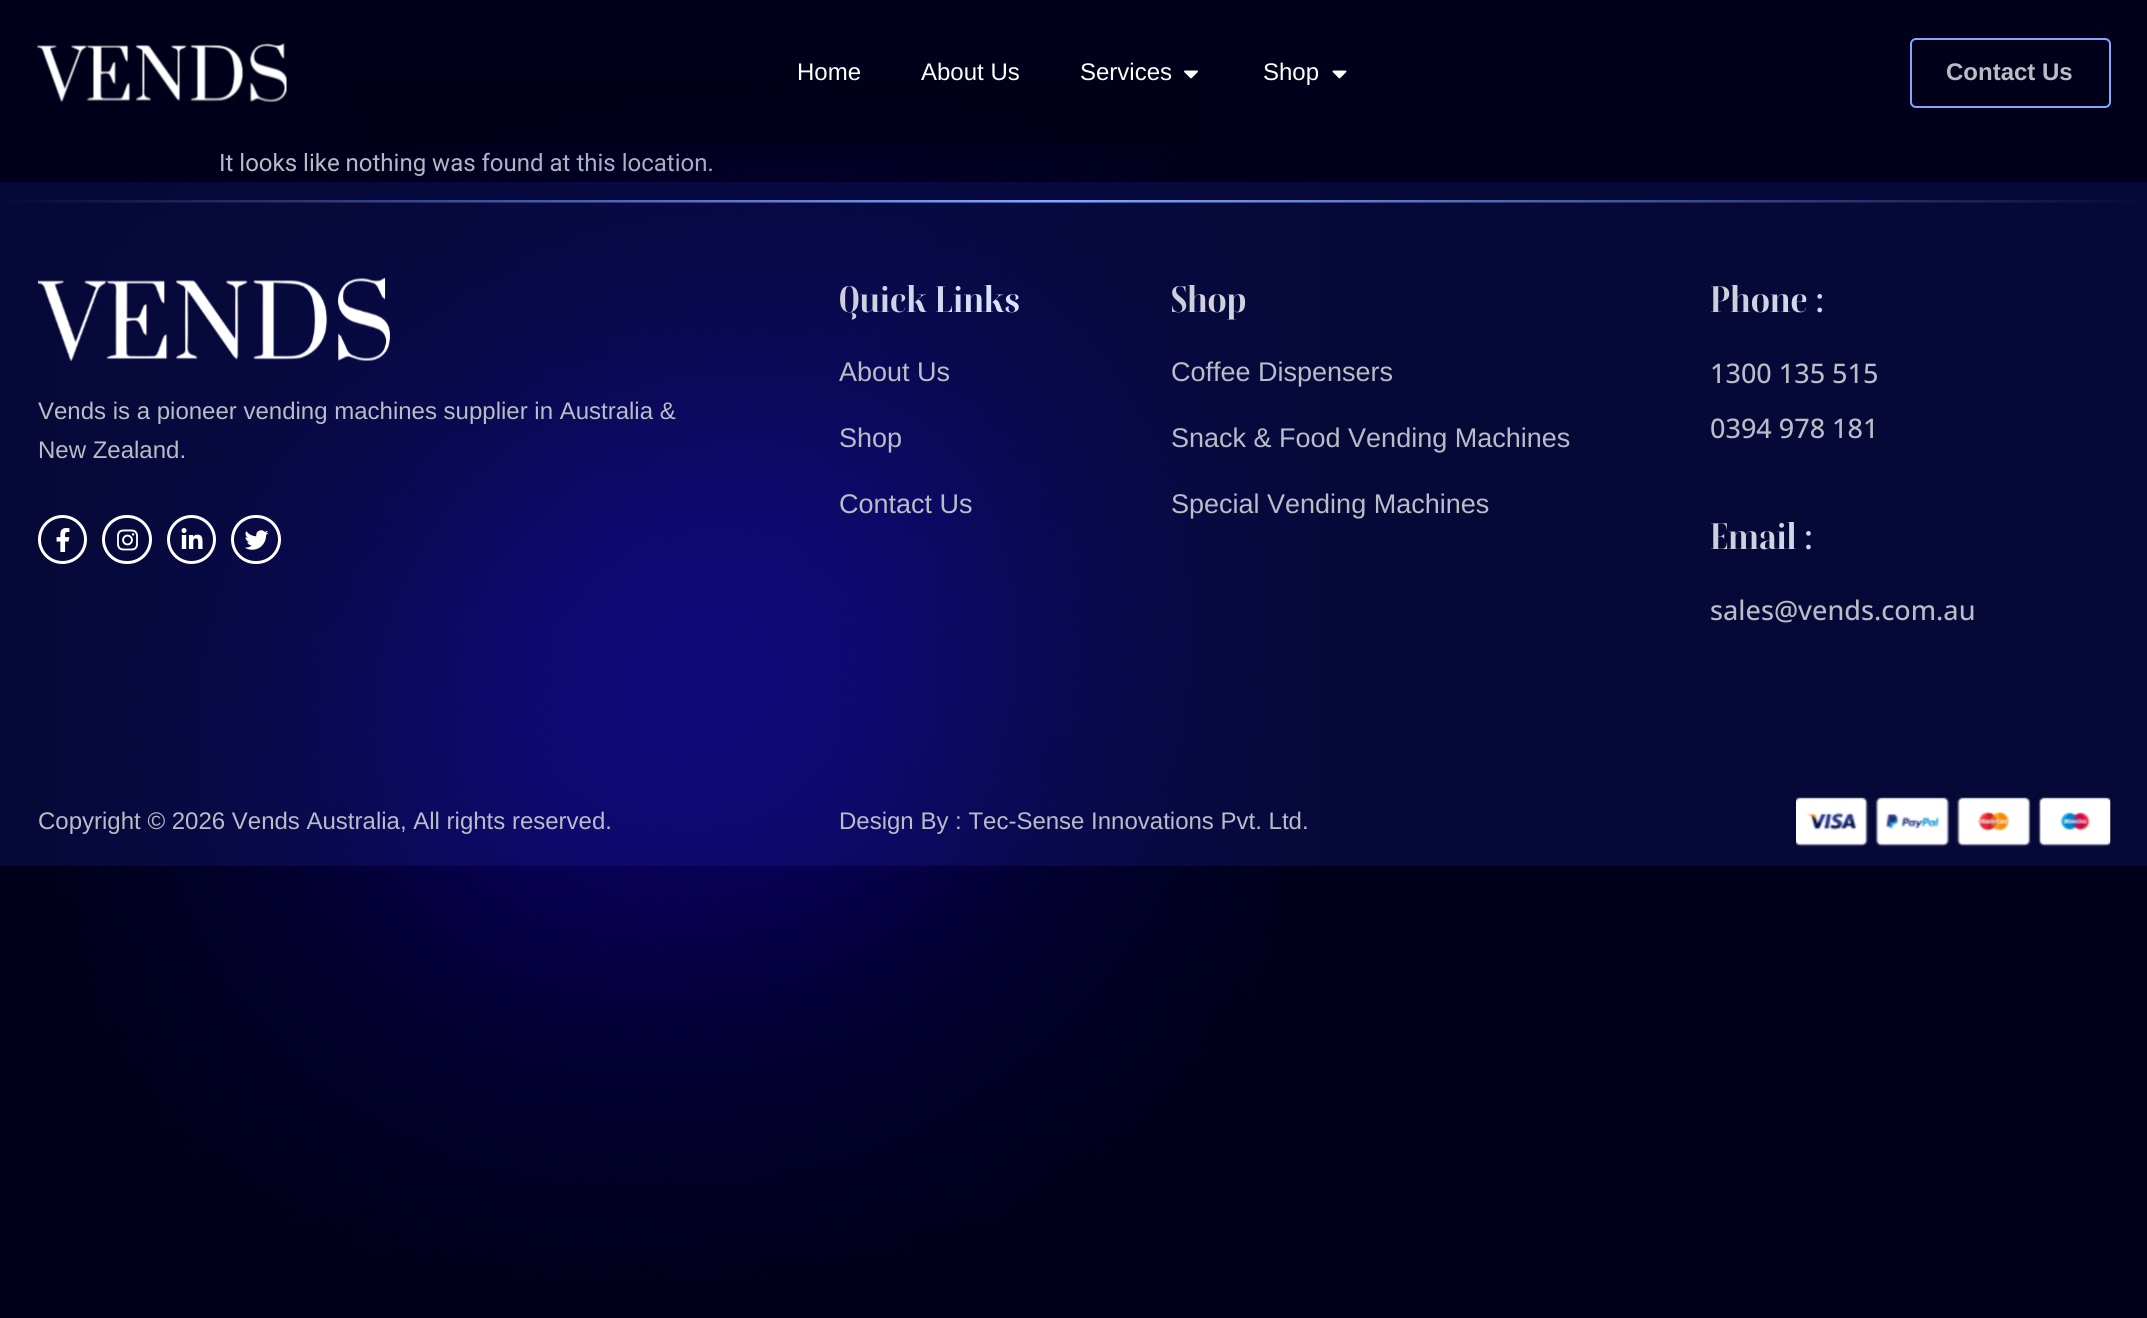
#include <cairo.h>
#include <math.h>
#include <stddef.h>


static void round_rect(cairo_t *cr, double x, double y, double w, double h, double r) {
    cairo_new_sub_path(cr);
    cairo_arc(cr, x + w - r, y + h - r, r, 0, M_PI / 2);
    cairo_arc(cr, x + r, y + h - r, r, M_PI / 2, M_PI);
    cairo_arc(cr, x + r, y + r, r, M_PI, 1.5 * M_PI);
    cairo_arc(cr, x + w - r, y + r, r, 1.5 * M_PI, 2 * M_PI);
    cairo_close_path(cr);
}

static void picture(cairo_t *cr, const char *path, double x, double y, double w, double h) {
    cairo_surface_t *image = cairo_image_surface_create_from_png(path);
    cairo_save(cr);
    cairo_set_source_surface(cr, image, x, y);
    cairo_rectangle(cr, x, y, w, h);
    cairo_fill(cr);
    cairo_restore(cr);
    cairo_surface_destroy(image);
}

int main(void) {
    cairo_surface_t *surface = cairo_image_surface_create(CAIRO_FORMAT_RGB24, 2147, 1318);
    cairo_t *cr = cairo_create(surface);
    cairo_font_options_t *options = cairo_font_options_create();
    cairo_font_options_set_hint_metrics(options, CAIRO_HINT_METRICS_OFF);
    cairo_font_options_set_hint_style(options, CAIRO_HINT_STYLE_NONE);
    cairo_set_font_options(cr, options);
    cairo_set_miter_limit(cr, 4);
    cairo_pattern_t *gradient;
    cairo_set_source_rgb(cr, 0, 0, 0.102);
    cairo_paint(cr);
    cairo_select_font_face(cr, "Roboto", CAIRO_FONT_SLANT_NORMAL, CAIRO_FONT_WEIGHT_NORMAL);
    cairo_set_font_size(cr, 24);
    cairo_set_source_rgb(cr, 0.729, 0.737, 0.776);
    cairo_move_to(cr, 219, 171);
    cairo_show_text(cr, "It looks like nothing was found at this location.");
    picture(cr, "img1.png", 58, 68, 1265, 1208);
    cairo_set_source_rgba(cr, 0, 0, 0.098, 0.85);
    cairo_rectangle(cr, 354, 68, 847, 78);
    cairo_fill(cr);
    picture(cr, "img2.png", 37, 43, 250, 60);
    cairo_select_font_face(cr, "Liberation Sans", CAIRO_FONT_SLANT_NORMAL, CAIRO_FONT_WEIGHT_NORMAL);
    cairo_set_source_rgb(cr, 1, 1, 1);
    cairo_move_to(cr, 797, 80);
    cairo_show_text(cr, "Home");
    cairo_move_to(cr, 921, 80);
    cairo_show_text(cr, "About Us");
    cairo_move_to(cr, 1080, 80);
    cairo_show_text(cr, "Services");
    picture(cr, "img3.png", 1184, 70, 14, 9);
    cairo_move_to(cr, 1263, 80);
    cairo_show_text(cr, "Shop");
    picture(cr, "img4.png", 1332, 70, 15, 9);
    round_rect(cr, 1911, 39, 199, 68, 5);
    cairo_set_source_rgb(cr, 0.522, 0.659, 1);
    cairo_stroke(cr);
    cairo_select_font_face(cr, "Liberation Sans", CAIRO_FONT_SLANT_NORMAL, CAIRO_FONT_WEIGHT_BOLD);
    cairo_set_source_rgb(cr, 0.729, 0.737, 0.776);
    cairo_move_to(cr, 1946, 80);
    cairo_show_text(cr, "Contact Us");
    cairo_set_source_rgba(cr, 0.184, 0.271, 1, 0.13);
    cairo_rectangle(cr, 0, 182, 2147, 684);
    cairo_fill(cr);
    cairo_save(cr);
    cairo_rectangle(cr, 0, 200, 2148, 3);
    cairo_clip(cr);
    cairo_new_path(cr);
    cairo_move_to(cr, 2.5, 201);
    cairo_line_to(cr, 2145.5, 201);
    gradient = cairo_pattern_create_linear(2.4, 203, 2146, 203);
    cairo_pattern_add_color_stop_rgba(gradient, 0, 0.522, 0.659, 1, 0);
    cairo_pattern_add_color_stop_rgba(gradient, 0.49, 0.522, 0.659, 1, 1);
    cairo_pattern_add_color_stop_rgba(gradient, 1, 0.522, 0.659, 1, 0);
    cairo_set_source(cr, gradient);
    cairo_pattern_destroy(gradient);
    cairo_set_line_width(cr, 3);
    cairo_stroke(cr);
    cairo_restore(cr);
    picture(cr, "img5.png", 38, 278, 352, 84);
    cairo_select_font_face(cr, "Liberation Sans", CAIRO_FONT_SLANT_NORMAL, CAIRO_FONT_WEIGHT_NORMAL);
    cairo_set_source_rgb(cr, 0.729, 0.737, 0.776);
    cairo_move_to(cr, 38, 419);
    cairo_show_text(cr, "Vends is a pioneer vending machines supplier in Australia &");
    cairo_move_to(cr, 38, 458);
    cairo_show_text(cr, "New Zealand.");
    cairo_new_path(cr);
    cairo_arc(cr, 62.5, 539.5, 23, 0, 2 * M_PI);
    cairo_set_source_rgb(cr, 1, 1, 1);
    cairo_set_line_width(cr, 3);
    cairo_stroke(cr);
    picture(cr, "img6.png", 56, 528, 14, 24);
    round_rect(cr, 103.5, 516.5, 47, 46, 23);
    cairo_stroke(cr);
    picture(cr, "img7.png", 117, 529, 21, 22);
    cairo_arc(cr, 191.5, 539.5, 23, 0, 2 * M_PI);
    cairo_stroke(cr);
    picture(cr, "img8.png", 181, 528, 22, 21);
    round_rect(cr, 232.5, 516.5, 47, 46, 23);
    cairo_stroke(cr);
    picture(cr, "img9.png", 245, 530, 24, 20);
    cairo_select_font_face(cr, "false", CAIRO_FONT_SLANT_NORMAL, CAIRO_FONT_WEIGHT_BOLD);
    cairo_set_font_size(cr, 36);
    gradient = cairo_pattern_create_linear(839, 283, 1171, 318);
    cairo_pattern_add_color_stop_rgba(gradient, 0.03, 0.808, 0.808, 0.859, 1);
    cairo_pattern_add_color_stop_rgba(gradient, 0.49, 0.835, 0.894, 1, 1);
    cairo_set_source(cr, gradient);
    cairo_pattern_destroy(gradient);
    cairo_move_to(cr, 839, 312);
    cairo_show_text(cr, "Quick Links");
    cairo_select_font_face(cr, "Liberation Sans", CAIRO_FONT_SLANT_NORMAL, CAIRO_FONT_WEIGHT_NORMAL);
    cairo_set_font_size(cr, 27);
    cairo_set_source_rgb(cr, 0.729, 0.737, 0.776);
    cairo_move_to(cr, 839, 381);
    cairo_show_text(cr, "About Us");
    cairo_move_to(cr, 839, 447);
    cairo_show_text(cr, "Shop");
    cairo_move_to(cr, 839, 513);
    cairo_show_text(cr, "Contact Us");
    cairo_select_font_face(cr, "false", CAIRO_FONT_SLANT_NORMAL, CAIRO_FONT_WEIGHT_BOLD);
    cairo_set_font_size(cr, 36);
    gradient = cairo_pattern_create_linear(1171, 272, 1709, 328);
    cairo_pattern_add_color_stop_rgba(gradient, 0.03, 0.804, 0.808, 0.847, 1);
    cairo_pattern_add_color_stop_rgba(gradient, 0.49, 0.835, 0.894, 1, 1);
    cairo_set_source(cr, gradient);
    cairo_pattern_destroy(gradient);
    cairo_move_to(cr, 1171, 312);
    cairo_show_text(cr, "Shop");
    cairo_select_font_face(cr, "Liberation Sans", CAIRO_FONT_SLANT_NORMAL, CAIRO_FONT_WEIGHT_NORMAL);
    cairo_set_font_size(cr, 27);
    cairo_set_source_rgb(cr, 0.729, 0.737, 0.776);
    cairo_move_to(cr, 1171, 381);
    cairo_show_text(cr, "Coffee Dispensers");
    cairo_move_to(cr, 1171, 447);
    cairo_show_text(cr, "Snack & Food Vending Machines");
    cairo_move_to(cr, 1171, 513);
    cairo_show_text(cr, "Special Vending Machines");
    cairo_select_font_face(cr, "false", CAIRO_FONT_SLANT_NORMAL, CAIRO_FONT_WEIGHT_BOLD);
    cairo_set_font_size(cr, 36);
    gradient = cairo_pattern_create_linear(1710, 279, 2111, 321);
    cairo_pattern_add_color_stop_rgba(gradient, 0.03, 0.804, 0.808, 0.843, 1);
    cairo_pattern_add_color_stop_rgba(gradient, 0.49, 0.835, 0.894, 1, 1);
    cairo_set_source(cr, gradient);
    cairo_pattern_destroy(gradient);
    cairo_move_to(cr, 1710, 312);
    cairo_show_text(cr, "Phone :");
    cairo_select_font_face(cr, "Open Sans Medium", CAIRO_FONT_SLANT_NORMAL, CAIRO_FONT_WEIGHT_NORMAL);
    cairo_set_font_size(cr, 27);
    cairo_set_source_rgb(cr, 0.729, 0.737, 0.776);
    cairo_move_to(cr, 1710, 383);
    cairo_show_text(cr, "1300 135 515");
    cairo_move_to(cr, 1710, 438);
    cairo_show_text(cr, "0394 978 181");
    cairo_select_font_face(cr, "false", CAIRO_FONT_SLANT_NORMAL, CAIRO_FONT_WEIGHT_BOLD);
    cairo_set_font_size(cr, 36);
    gradient = cairo_pattern_create_linear(1706, 483, 2114, 526);
    cairo_pattern_add_color_stop_rgba(gradient, 0.03, 0.804, 0.808, 0.843, 1);
    cairo_pattern_add_color_stop_rgba(gradient, 0.49, 0.835, 0.894, 1, 1);
    cairo_set_source(cr, gradient);
    cairo_pattern_destroy(gradient);
    cairo_move_to(cr, 1710, 549);
    cairo_show_text(cr, "Email :");
    cairo_select_font_face(cr, "Open Sans Medium", CAIRO_FONT_SLANT_NORMAL, CAIRO_FONT_WEIGHT_NORMAL);
    cairo_set_font_size(cr, 27);
    cairo_set_source_rgb(cr, 0.729, 0.737, 0.776);
    cairo_move_to(cr, 1710, 620);
    cairo_show_text(cr, "sales@vends.com.au");
    cairo_select_font_face(cr, "Liberation Sans", CAIRO_FONT_SLANT_NORMAL, CAIRO_FONT_WEIGHT_NORMAL);
    cairo_set_font_size(cr, 24);
    cairo_move_to(cr, 38, 829);
    cairo_show_text(cr, "Copyright © 2026 Vends Australia, All rights reserved.");
    cairo_move_to(cr, 839, 829);
    cairo_show_text(cr, "Design By : Tec-Sense Innovations Pvt. Ltd.");
    picture(cr, "img10.png", 1796, 797, 315, 50);
    cairo_surface_write_to_png(surface, "page.png");
    cairo_font_options_destroy(options);
    cairo_destroy(cr);
    cairo_surface_destroy(surface);
    return 0;
}
